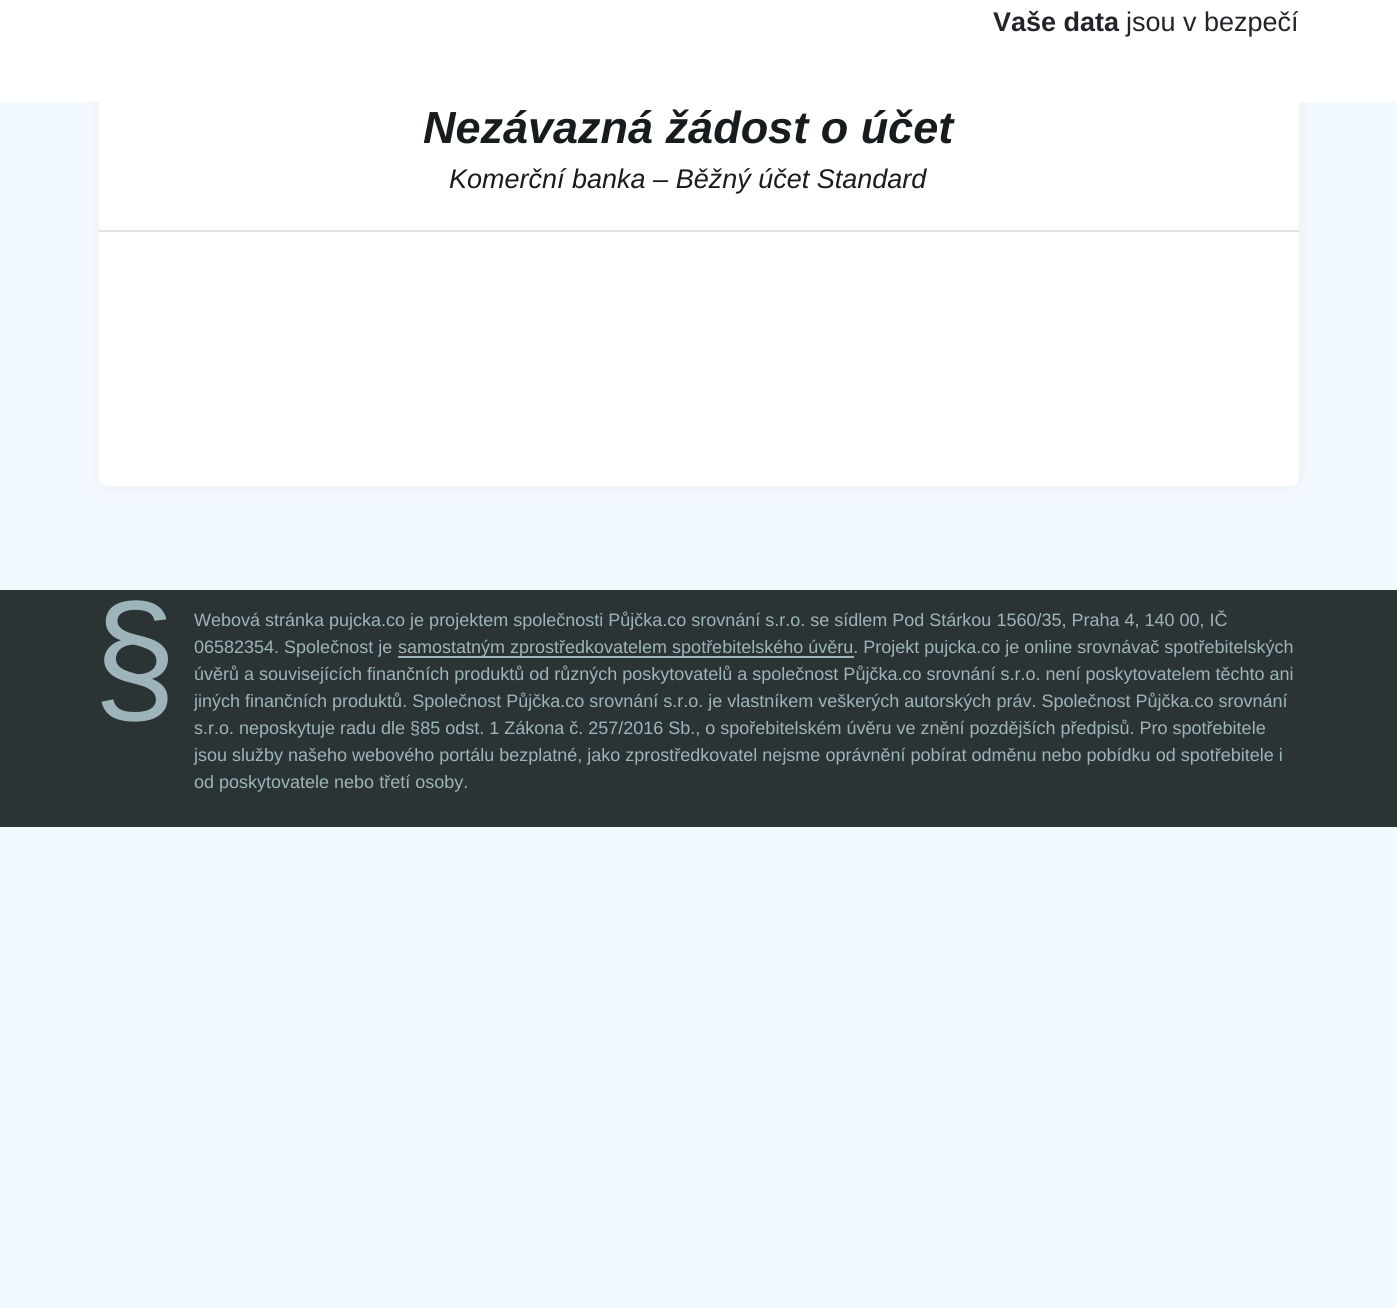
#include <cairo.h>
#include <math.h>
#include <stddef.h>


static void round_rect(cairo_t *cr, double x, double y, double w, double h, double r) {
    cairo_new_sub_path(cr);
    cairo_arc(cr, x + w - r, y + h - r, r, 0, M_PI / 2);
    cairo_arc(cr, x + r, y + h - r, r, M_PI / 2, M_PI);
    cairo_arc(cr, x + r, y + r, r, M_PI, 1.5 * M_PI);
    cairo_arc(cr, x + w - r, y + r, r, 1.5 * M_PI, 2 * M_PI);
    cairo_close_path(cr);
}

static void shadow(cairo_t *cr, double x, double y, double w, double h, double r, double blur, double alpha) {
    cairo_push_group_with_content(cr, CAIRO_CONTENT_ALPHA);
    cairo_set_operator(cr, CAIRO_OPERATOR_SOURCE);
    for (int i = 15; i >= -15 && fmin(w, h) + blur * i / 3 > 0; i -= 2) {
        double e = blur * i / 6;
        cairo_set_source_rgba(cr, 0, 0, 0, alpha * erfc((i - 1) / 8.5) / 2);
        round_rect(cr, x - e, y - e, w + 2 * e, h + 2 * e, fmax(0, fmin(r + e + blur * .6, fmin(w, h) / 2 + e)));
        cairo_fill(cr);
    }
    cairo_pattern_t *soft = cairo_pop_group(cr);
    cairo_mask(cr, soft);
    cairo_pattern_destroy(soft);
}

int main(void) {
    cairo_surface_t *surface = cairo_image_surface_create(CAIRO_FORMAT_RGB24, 1397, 1308);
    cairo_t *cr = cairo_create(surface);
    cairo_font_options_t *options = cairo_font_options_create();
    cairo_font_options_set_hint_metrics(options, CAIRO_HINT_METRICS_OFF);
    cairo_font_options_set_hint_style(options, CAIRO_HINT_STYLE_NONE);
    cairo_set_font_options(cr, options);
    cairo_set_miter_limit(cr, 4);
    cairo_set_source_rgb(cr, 0.953, 0.98, 1);
    cairo_paint(cr);
    cairo_set_source_rgb(cr, 0.914, 0.937, 0.957);
    shadow(cr, 99, 68, 1200, 418, 8, 7.5, 1);
    cairo_set_source_rgb(cr, 1, 1, 1);
    round_rect(cr, 99, 68, 1200, 418, 8);
    cairo_fill(cr);
    cairo_rectangle(cr, 0, 0, 1397, 102);
    cairo_fill(cr);
    cairo_select_font_face(cr, "Liberation Sans", CAIRO_FONT_SLANT_NORMAL, CAIRO_FONT_WEIGHT_BOLD);
    cairo_set_font_size(cr, 27);
    cairo_set_source_rgb(cr, 0.129, 0.145, 0.161);
    cairo_move_to(cr, 993, 31);
    cairo_show_text(cr, "Vaše data");
    cairo_select_font_face(cr, "Liberation Sans", CAIRO_FONT_SLANT_NORMAL, CAIRO_FONT_WEIGHT_NORMAL);
    cairo_move_to(cr, 1126, 31);
    cairo_show_text(cr, "jsou v bezpečí");
    cairo_set_source_rgb(cr, 0.886, 0.886, 0.886);
    cairo_rectangle(cr, 99, 230, 1200, 2);
    cairo_fill(cr);
    cairo_select_font_face(cr, "Liberation Sans", CAIRO_FONT_SLANT_ITALIC, CAIRO_FONT_WEIGHT_BOLD);
    cairo_set_font_size(cr, 45);
    cairo_set_source_rgb(cr, 0.09, 0.11, 0.118);
    cairo_move_to(cr, 423, 143);
    cairo_show_text(cr, "Nezávazná žádost o účet");
    cairo_select_font_face(cr, "Liberation Sans", CAIRO_FONT_SLANT_ITALIC, CAIRO_FONT_WEIGHT_NORMAL);
    cairo_set_font_size(cr, 27);
    cairo_move_to(cr, 449, 188);
    cairo_show_text(cr, "Komerční banka – Běžný účet Standard");
    cairo_set_source_rgb(cr, 0.173, 0.2, 0.204);
    cairo_rectangle(cr, 0, 590, 1397, 237);
    cairo_fill(cr);
    cairo_select_font_face(cr, "Liberation Sans", CAIRO_FONT_SLANT_NORMAL, CAIRO_FONT_WEIGHT_NORMAL);
    cairo_set_font_size(cr, 150);
    cairo_set_source_rgb(cr, 0.616, 0.71, 0.729);
    cairo_move_to(cr, 93, 709);
    cairo_show_text(cr, "§");
    cairo_set_font_size(cr, 18);
    cairo_move_to(cr, 194, 626);
    cairo_show_text(cr, "Webová stránka pujcka.co je projektem společnosti Půjčka.co srovnání s.r.o. se sídlem Pod Stárkou 1560/35, Praha 4, 140 00, IČ");
    cairo_move_to(cr, 194, 653);
    cairo_show_text(cr, "06582354. Společnost je");
    cairo_rectangle(cr, 398, 656, 456, 2);
    cairo_fill(cr);
    cairo_move_to(cr, 398, 653);
    cairo_show_text(cr, "samostatným zprostředkovatelem spotřebitelského úvěru. Projekt pujcka.co je online srovnávač spotřebitelských");
    cairo_move_to(cr, 194, 680);
    cairo_show_text(cr, "úvěrů a souvisejících finančních produktů od různých poskytovatelů a společnost Půjčka.co srovnání s.r.o. není poskytovatelem těchto ani");
    cairo_move_to(cr, 194, 707);
    cairo_show_text(cr, "jiných finančních produktů. Společnost Půjčka.co srovnání s.r.o. je vlastníkem veškerých autorských práv. Společnost Půjčka.co srovnání");
    cairo_move_to(cr, 194, 734);
    cairo_show_text(cr, "s.r.o. neposkytuje radu dle §85 odst. 1 Zákona č. 257/2016 Sb., o spořebitelském úvěru ve znění pozdějších předpisů. Pro spotřebitele");
    cairo_move_to(cr, 194, 761);
    cairo_show_text(cr, "jsou služby našeho webového portálu bezplatné, jako zprostředkovatel nejsme oprávnění pobírat odměnu nebo pobídku od spotřebitele i");
    cairo_move_to(cr, 194, 788);
    cairo_show_text(cr, "od poskytovatele nebo třetí osoby.");
    cairo_surface_write_to_png(surface, "page.png");
    cairo_font_options_destroy(options);
    cairo_destroy(cr);
    cairo_surface_destroy(surface);
    return 0;
}
